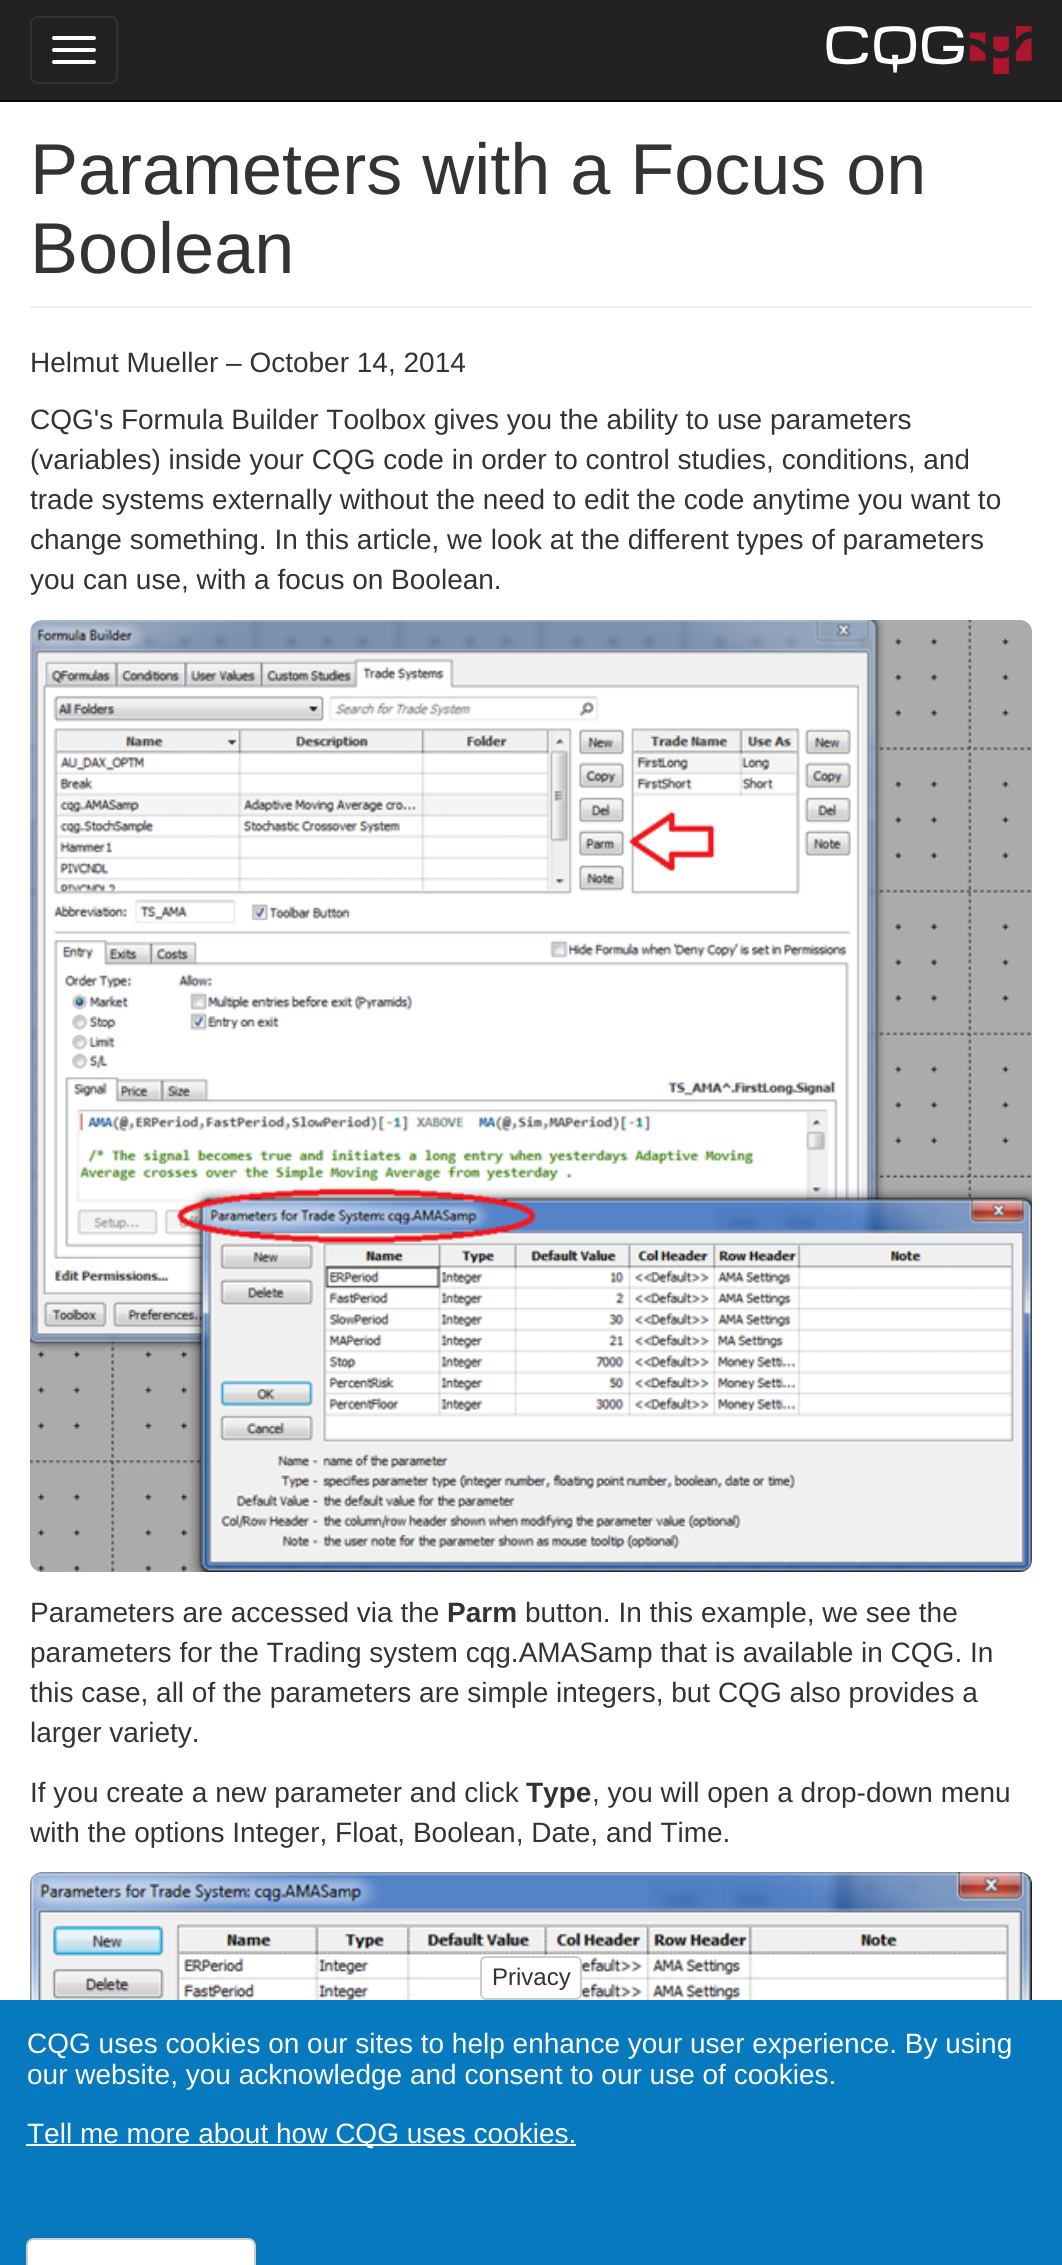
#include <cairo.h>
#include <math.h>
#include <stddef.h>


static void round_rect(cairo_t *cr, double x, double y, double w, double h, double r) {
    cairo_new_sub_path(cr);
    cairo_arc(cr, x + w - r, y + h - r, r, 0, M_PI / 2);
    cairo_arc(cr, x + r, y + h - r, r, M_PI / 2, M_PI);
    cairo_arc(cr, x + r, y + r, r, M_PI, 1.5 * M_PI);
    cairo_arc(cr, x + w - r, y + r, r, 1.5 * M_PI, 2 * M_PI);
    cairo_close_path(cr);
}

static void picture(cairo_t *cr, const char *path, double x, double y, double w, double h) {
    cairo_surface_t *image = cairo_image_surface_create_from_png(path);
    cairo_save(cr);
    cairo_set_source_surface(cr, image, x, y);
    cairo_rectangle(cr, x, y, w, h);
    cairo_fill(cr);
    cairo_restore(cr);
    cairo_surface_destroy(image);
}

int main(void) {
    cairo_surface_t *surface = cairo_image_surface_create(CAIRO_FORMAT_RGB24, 1062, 2265);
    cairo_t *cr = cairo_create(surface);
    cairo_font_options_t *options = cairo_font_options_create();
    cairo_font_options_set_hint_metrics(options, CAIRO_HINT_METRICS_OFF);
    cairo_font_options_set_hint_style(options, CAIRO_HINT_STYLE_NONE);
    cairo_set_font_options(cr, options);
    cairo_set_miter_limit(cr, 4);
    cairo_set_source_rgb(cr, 1, 1, 1);
    cairo_paint(cr);
    cairo_set_source_rgb(cr, 0.133, 0.133, 0.133);
    cairo_rectangle(cr, 0, 0, 1062, 100);
    cairo_fill(cr);
    cairo_set_source_rgb(cr, 0.035, 0.035, 0.035);
    cairo_rectangle(cr, 0, 100, 1062, 2);
    cairo_fill(cr);
    round_rect(cr, 31, 17, 86, 66, 7);
    cairo_set_source_rgb(cr, 0.2, 0.2, 0.2);
    cairo_stroke(cr);
    cairo_set_source_rgb(cr, 1, 1, 1);
    round_rect(cr, 52, 36, 44, 4, 2);
    cairo_fill(cr);
    round_rect(cr, 52, 48, 44, 4, 2);
    cairo_fill(cr);
    round_rect(cr, 52, 60, 44, 4, 2);
    cairo_fill(cr);
    picture(cr, "img1.png", 826, 26, 206, 48);
    cairo_set_source_rgb(cr, 0.933, 0.933, 0.933);
    cairo_rectangle(cr, 30, 306, 1002, 2);
    cairo_fill(cr);
    cairo_select_font_face(cr, "Liberation Sans", CAIRO_FONT_SLANT_NORMAL, CAIRO_FONT_WEIGHT_NORMAL);
    cairo_set_font_size(cr, 72);
    cairo_set_source_rgb(cr, 0.2, 0.2, 0.2);
    cairo_move_to(cr, 30, 194);
    cairo_show_text(cr, "Parameters with a Focus on");
    cairo_move_to(cr, 30, 273);
    cairo_show_text(cr, "Boolean");
    cairo_set_font_size(cr, 28);
    cairo_move_to(cr, 30, 372);
    cairo_show_text(cr, "Helmut Mueller – October 14, 2014");
    cairo_move_to(cr, 30, 429);
    cairo_show_text(cr, "CQG's Formula Builder Toolbox gives you the ability to use parameters");
    cairo_move_to(cr, 30, 469);
    cairo_show_text(cr, "(variables) inside your CQG code in order to control studies, conditions, and");
    cairo_move_to(cr, 30, 509);
    cairo_show_text(cr, "trade systems externally without the need to edit the code anytime you want to");
    cairo_move_to(cr, 30, 549);
    cairo_show_text(cr, "change something. In this article, we look at the different types of parameters");
    cairo_move_to(cr, 30, 589);
    cairo_show_text(cr, "you can use, with a focus on Boolean.");
    picture(cr, "img2.png", 30, 620, 1002, 952);
    cairo_move_to(cr, 30, 1622);
    cairo_show_text(cr, "Parameters are accessed via the");
    cairo_select_font_face(cr, "Liberation Sans", CAIRO_FONT_SLANT_NORMAL, CAIRO_FONT_WEIGHT_BOLD);
    cairo_move_to(cr, 447, 1622);
    cairo_show_text(cr, "Parm");
    cairo_select_font_face(cr, "Liberation Sans", CAIRO_FONT_SLANT_NORMAL, CAIRO_FONT_WEIGHT_NORMAL);
    cairo_move_to(cr, 525, 1622);
    cairo_show_text(cr, "button. In this example, we see the");
    cairo_move_to(cr, 30, 1662);
    cairo_show_text(cr, "parameters for the Trading system cqg.AMASamp that is available in CQG. In");
    cairo_move_to(cr, 30, 1702);
    cairo_show_text(cr, "this case, all of the parameters are simple integers, but CQG also provides a");
    cairo_move_to(cr, 30, 1742);
    cairo_show_text(cr, "larger variety.");
    cairo_move_to(cr, 30, 1802);
    cairo_show_text(cr, "If you create a new parameter and click");
    cairo_select_font_face(cr, "Liberation Sans", CAIRO_FONT_SLANT_NORMAL, CAIRO_FONT_WEIGHT_BOLD);
    cairo_move_to(cr, 526, 1802);
    cairo_show_text(cr, "Type");
    cairo_select_font_face(cr, "Liberation Sans", CAIRO_FONT_SLANT_NORMAL, CAIRO_FONT_WEIGHT_NORMAL);
    cairo_move_to(cr, 592, 1802);
    cairo_show_text(cr, ", you will open a drop-down menu");
    cairo_move_to(cr, 30, 1842);
    cairo_show_text(cr, "with the options Integer, Float, Boolean, Date, and Time.");
    picture(cr, "img3.png", 30, 1872, 1002, 128);
    cairo_set_source_rgb(cr, 0.027, 0.475, 0.749);
    cairo_rectangle(cr, 0, 2000, 1062, 265);
    cairo_fill(cr);
    cairo_set_source_rgb(cr, 1, 1, 1);
    round_rect(cr, 481, 1957, 100, 42, 5);
    cairo_fill_preserve(cr);
    cairo_set_source_rgb(cr, 0.8, 0.8, 0.8);
    cairo_stroke(cr);
    cairo_set_font_size(cr, 24);
    cairo_set_source_rgb(cr, 0.2, 0.2, 0.2);
    cairo_move_to(cr, 492, 1985);
    cairo_show_text(cr, "Privacy");
    cairo_set_font_size(cr, 28);
    cairo_set_source_rgb(cr, 1, 1, 1);
    cairo_move_to(cr, 27, 2053);
    cairo_show_text(cr, "CQG uses cookies on our sites to help enhance your user experience. By using");
    cairo_move_to(cr, 27, 2084);
    cairo_show_text(cr, "our website, you acknowledge and consent to our use of cookies.");
    cairo_rectangle(cr, 26, 2144, 550, 2);
    cairo_fill(cr);
    cairo_move_to(cr, 27, 2143);
    cairo_show_text(cr, "Tell me more about how CQG uses cookies.");
    round_rect(cr, 27, 2239, 228, 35, 7);
    cairo_fill_preserve(cr);
    cairo_set_source_rgb(cr, 0.8, 0.8, 0.8);
    cairo_stroke(cr);
    cairo_surface_write_to_png(surface, "page.png");
    cairo_font_options_destroy(options);
    cairo_destroy(cr);
    cairo_surface_destroy(surface);
    return 0;
}
